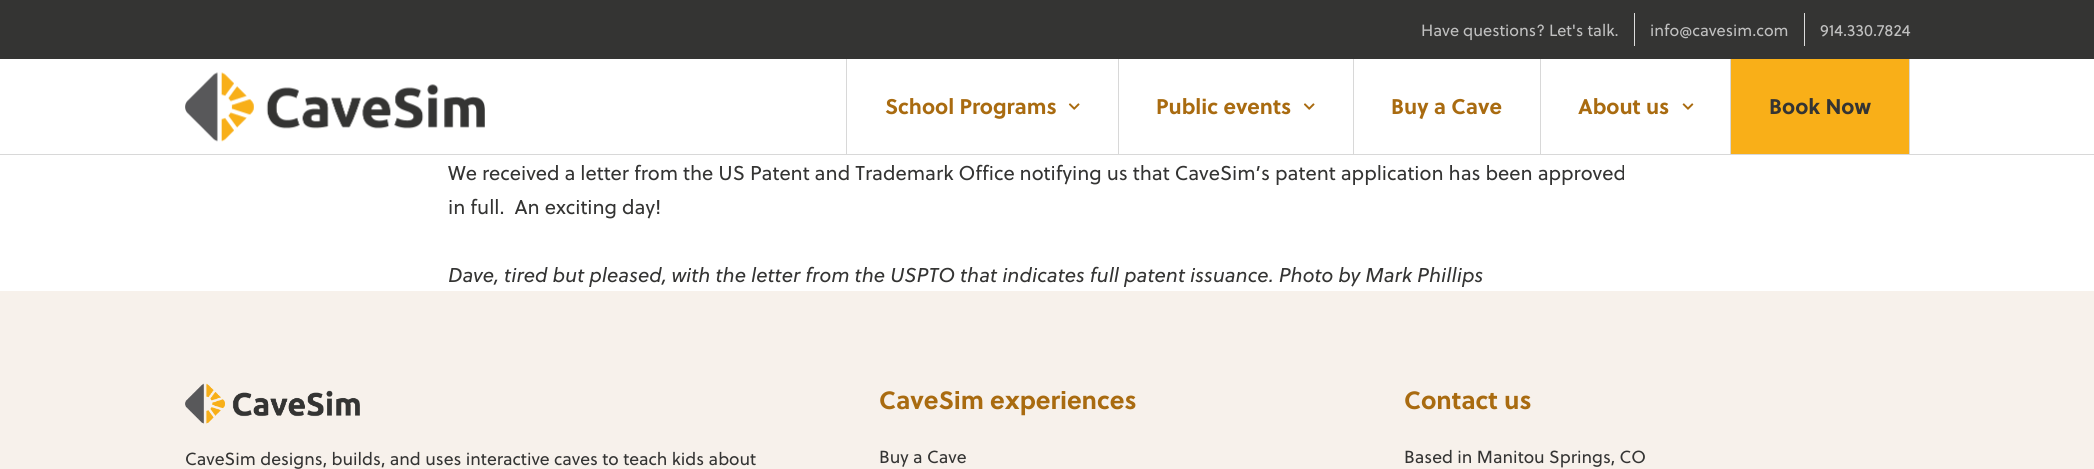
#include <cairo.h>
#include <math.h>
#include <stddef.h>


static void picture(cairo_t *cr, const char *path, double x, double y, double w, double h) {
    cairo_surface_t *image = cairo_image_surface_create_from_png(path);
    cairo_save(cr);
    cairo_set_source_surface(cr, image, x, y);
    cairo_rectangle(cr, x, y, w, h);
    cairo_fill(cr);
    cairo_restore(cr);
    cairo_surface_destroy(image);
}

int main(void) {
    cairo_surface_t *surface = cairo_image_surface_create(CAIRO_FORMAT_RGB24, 2094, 469);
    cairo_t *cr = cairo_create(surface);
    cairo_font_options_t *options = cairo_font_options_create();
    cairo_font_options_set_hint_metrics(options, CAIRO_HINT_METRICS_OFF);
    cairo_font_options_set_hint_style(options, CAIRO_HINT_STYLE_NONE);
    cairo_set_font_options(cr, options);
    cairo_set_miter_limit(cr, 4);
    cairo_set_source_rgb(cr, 1, 1, 1);
    cairo_paint(cr);
    cairo_set_source_rgb(cr, 0.204, 0.204, 0.2);
    cairo_rectangle(cr, 0, 0, 2094, 59);
    cairo_fill(cr);
    cairo_select_font_face(cr, "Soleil", CAIRO_FONT_SLANT_NORMAL, CAIRO_FONT_WEIGHT_NORMAL);
    cairo_set_font_size(cr, 16.25);
    cairo_set_source_rgb(cr, 0.753, 0.753, 0.753);
    cairo_move_to(cr, 1421, 36);
    cairo_show_text(cr, "Have questions? Let's talk.");
    cairo_set_source_rgb(cr, 0.867, 0.867, 0.867);
    cairo_rectangle(cr, 1634, 13, 1, 33);
    cairo_fill(cr);
    cairo_set_source_rgb(cr, 0.753, 0.753, 0.753);
    cairo_move_to(cr, 1650, 36);
    cairo_show_text(cr, "info@cavesim.com");
    cairo_set_source_rgb(cr, 0.867, 0.867, 0.867);
    cairo_rectangle(cr, 1804, 13, 1, 33);
    cairo_fill(cr);
    cairo_set_source_rgb(cr, 0.753, 0.753, 0.753);
    cairo_move_to(cr, 1820, 36);
    cairo_show_text(cr, "914.330.7824");
    cairo_set_source_rgb(cr, 0.847, 0.847, 0.847);
    cairo_rectangle(cr, 0, 154, 2094, 1);
    cairo_fill(cr);
    picture(cr, "img1.png", 185, 72, 300, 70);
    cairo_rectangle(cr, 846, 59, 1, 95);
    cairo_fill(cr);
    cairo_select_font_face(cr, "Soleil", CAIRO_FONT_SLANT_NORMAL, CAIRO_FONT_WEIGHT_BOLD);
    cairo_set_font_size(cr, 21.25);
    cairo_set_source_rgb(cr, 0.663, 0.42, 0.063);
    cairo_move_to(cr, 885, 114);
    cairo_show_text(cr, "School Programs");
    picture(cr, "img2.png", 1068, 103, 12, 7);
    cairo_set_source_rgb(cr, 0.847, 0.847, 0.847);
    cairo_rectangle(cr, 1118, 59, 1, 95);
    cairo_fill(cr);
    cairo_set_source_rgb(cr, 0.663, 0.42, 0.063);
    cairo_move_to(cr, 1156, 114);
    cairo_show_text(cr, "Public events");
    picture(cr, "img2.png", 1303, 103, 12, 7);
    cairo_set_source_rgb(cr, 0.847, 0.847, 0.847);
    cairo_rectangle(cr, 1353, 59, 1, 95);
    cairo_fill(cr);
    cairo_set_source_rgb(cr, 0.663, 0.42, 0.063);
    cairo_move_to(cr, 1391, 114);
    cairo_show_text(cr, "Buy a Cave");
    cairo_set_source_rgb(cr, 0.847, 0.847, 0.847);
    cairo_rectangle(cr, 1540, 59, 1, 95);
    cairo_fill(cr);
    cairo_set_source_rgb(cr, 0.663, 0.42, 0.063);
    cairo_move_to(cr, 1578, 114);
    cairo_show_text(cr, "About us");
    picture(cr, "img3.png", 1682, 103, 12, 7);
    cairo_set_source_rgb(cr, 0.973, 0.686, 0.094);
    cairo_rectangle(cr, 1731, 59, 178, 95);
    cairo_fill(cr);
    cairo_set_source_rgb(cr, 0.847, 0.847, 0.847);
    cairo_rectangle(cr, 1909, 59, 1, 95);
    cairo_fill(cr);
    cairo_rectangle(cr, 1730, 59, 1, 95);
    cairo_fill(cr);
    cairo_set_source_rgb(cr, 0.204, 0.204, 0.2);
    cairo_move_to(cr, 1769, 114);
    cairo_show_text(cr, "Book Now");
    cairo_select_font_face(cr, "Soleil", CAIRO_FONT_SLANT_NORMAL, CAIRO_FONT_WEIGHT_NORMAL);
    cairo_set_font_size(cr, 20);
    cairo_move_to(cr, 448, 180);
    cairo_show_text(cr, "We received a letter from the US Patent and Trademark Office notifying us that CaveSim’s patent application has been approved");
    cairo_move_to(cr, 448, 214);
    cairo_show_text(cr, "in full.  An exciting day!");
    cairo_select_font_face(cr, "Soleil", CAIRO_FONT_SLANT_ITALIC, CAIRO_FONT_WEIGHT_NORMAL);
    cairo_move_to(cr, 448, 282);
    cairo_show_text(cr, "Dave, tired but pleased, with the letter from the USPTO that indicates full patent issuance. Photo by Mark Phillips");
    cairo_set_source_rgb(cr, 0.965, 0.945, 0.918);
    cairo_rectangle(cr, 0, 291, 2094, 178);
    cairo_fill(cr);
    picture(cr, "img4.png", 185, 383, 175, 41);
    cairo_select_font_face(cr, "Soleil", CAIRO_FONT_SLANT_NORMAL, CAIRO_FONT_WEIGHT_NORMAL);
    cairo_set_font_size(cr, 17.5);
    cairo_set_source_rgb(cr, 0.204, 0.204, 0.2);
    cairo_move_to(cr, 185, 465);
    cairo_show_text(cr, "CaveSim designs, builds, and uses interactive caves to teach kids about");
    cairo_select_font_face(cr, "Soleil", CAIRO_FONT_SLANT_NORMAL, CAIRO_FONT_WEIGHT_BOLD);
    cairo_set_font_size(cr, 25);
    cairo_set_source_rgb(cr, 0.663, 0.42, 0.063);
    cairo_move_to(cr, 879, 409);
    cairo_show_text(cr, "CaveSim experiences");
    cairo_select_font_face(cr, "Soleil", CAIRO_FONT_SLANT_NORMAL, CAIRO_FONT_WEIGHT_NORMAL);
    cairo_set_font_size(cr, 17.5);
    cairo_set_source_rgb(cr, 0.204, 0.204, 0.2);
    cairo_move_to(cr, 879, 463);
    cairo_show_text(cr, "Buy a Cave");
    cairo_select_font_face(cr, "Soleil", CAIRO_FONT_SLANT_NORMAL, CAIRO_FONT_WEIGHT_BOLD);
    cairo_set_font_size(cr, 25);
    cairo_set_source_rgb(cr, 0.663, 0.42, 0.063);
    cairo_move_to(cr, 1404, 409);
    cairo_show_text(cr, "Contact us");
    cairo_select_font_face(cr, "Soleil", CAIRO_FONT_SLANT_NORMAL, CAIRO_FONT_WEIGHT_NORMAL);
    cairo_set_font_size(cr, 17.5);
    cairo_set_source_rgb(cr, 0.204, 0.204, 0.2);
    cairo_move_to(cr, 1404, 463);
    cairo_show_text(cr, "Based in Manitou Springs, CO");
    cairo_surface_write_to_png(surface, "page.png");
    cairo_font_options_destroy(options);
    cairo_destroy(cr);
    cairo_surface_destroy(surface);
    return 0;
}
